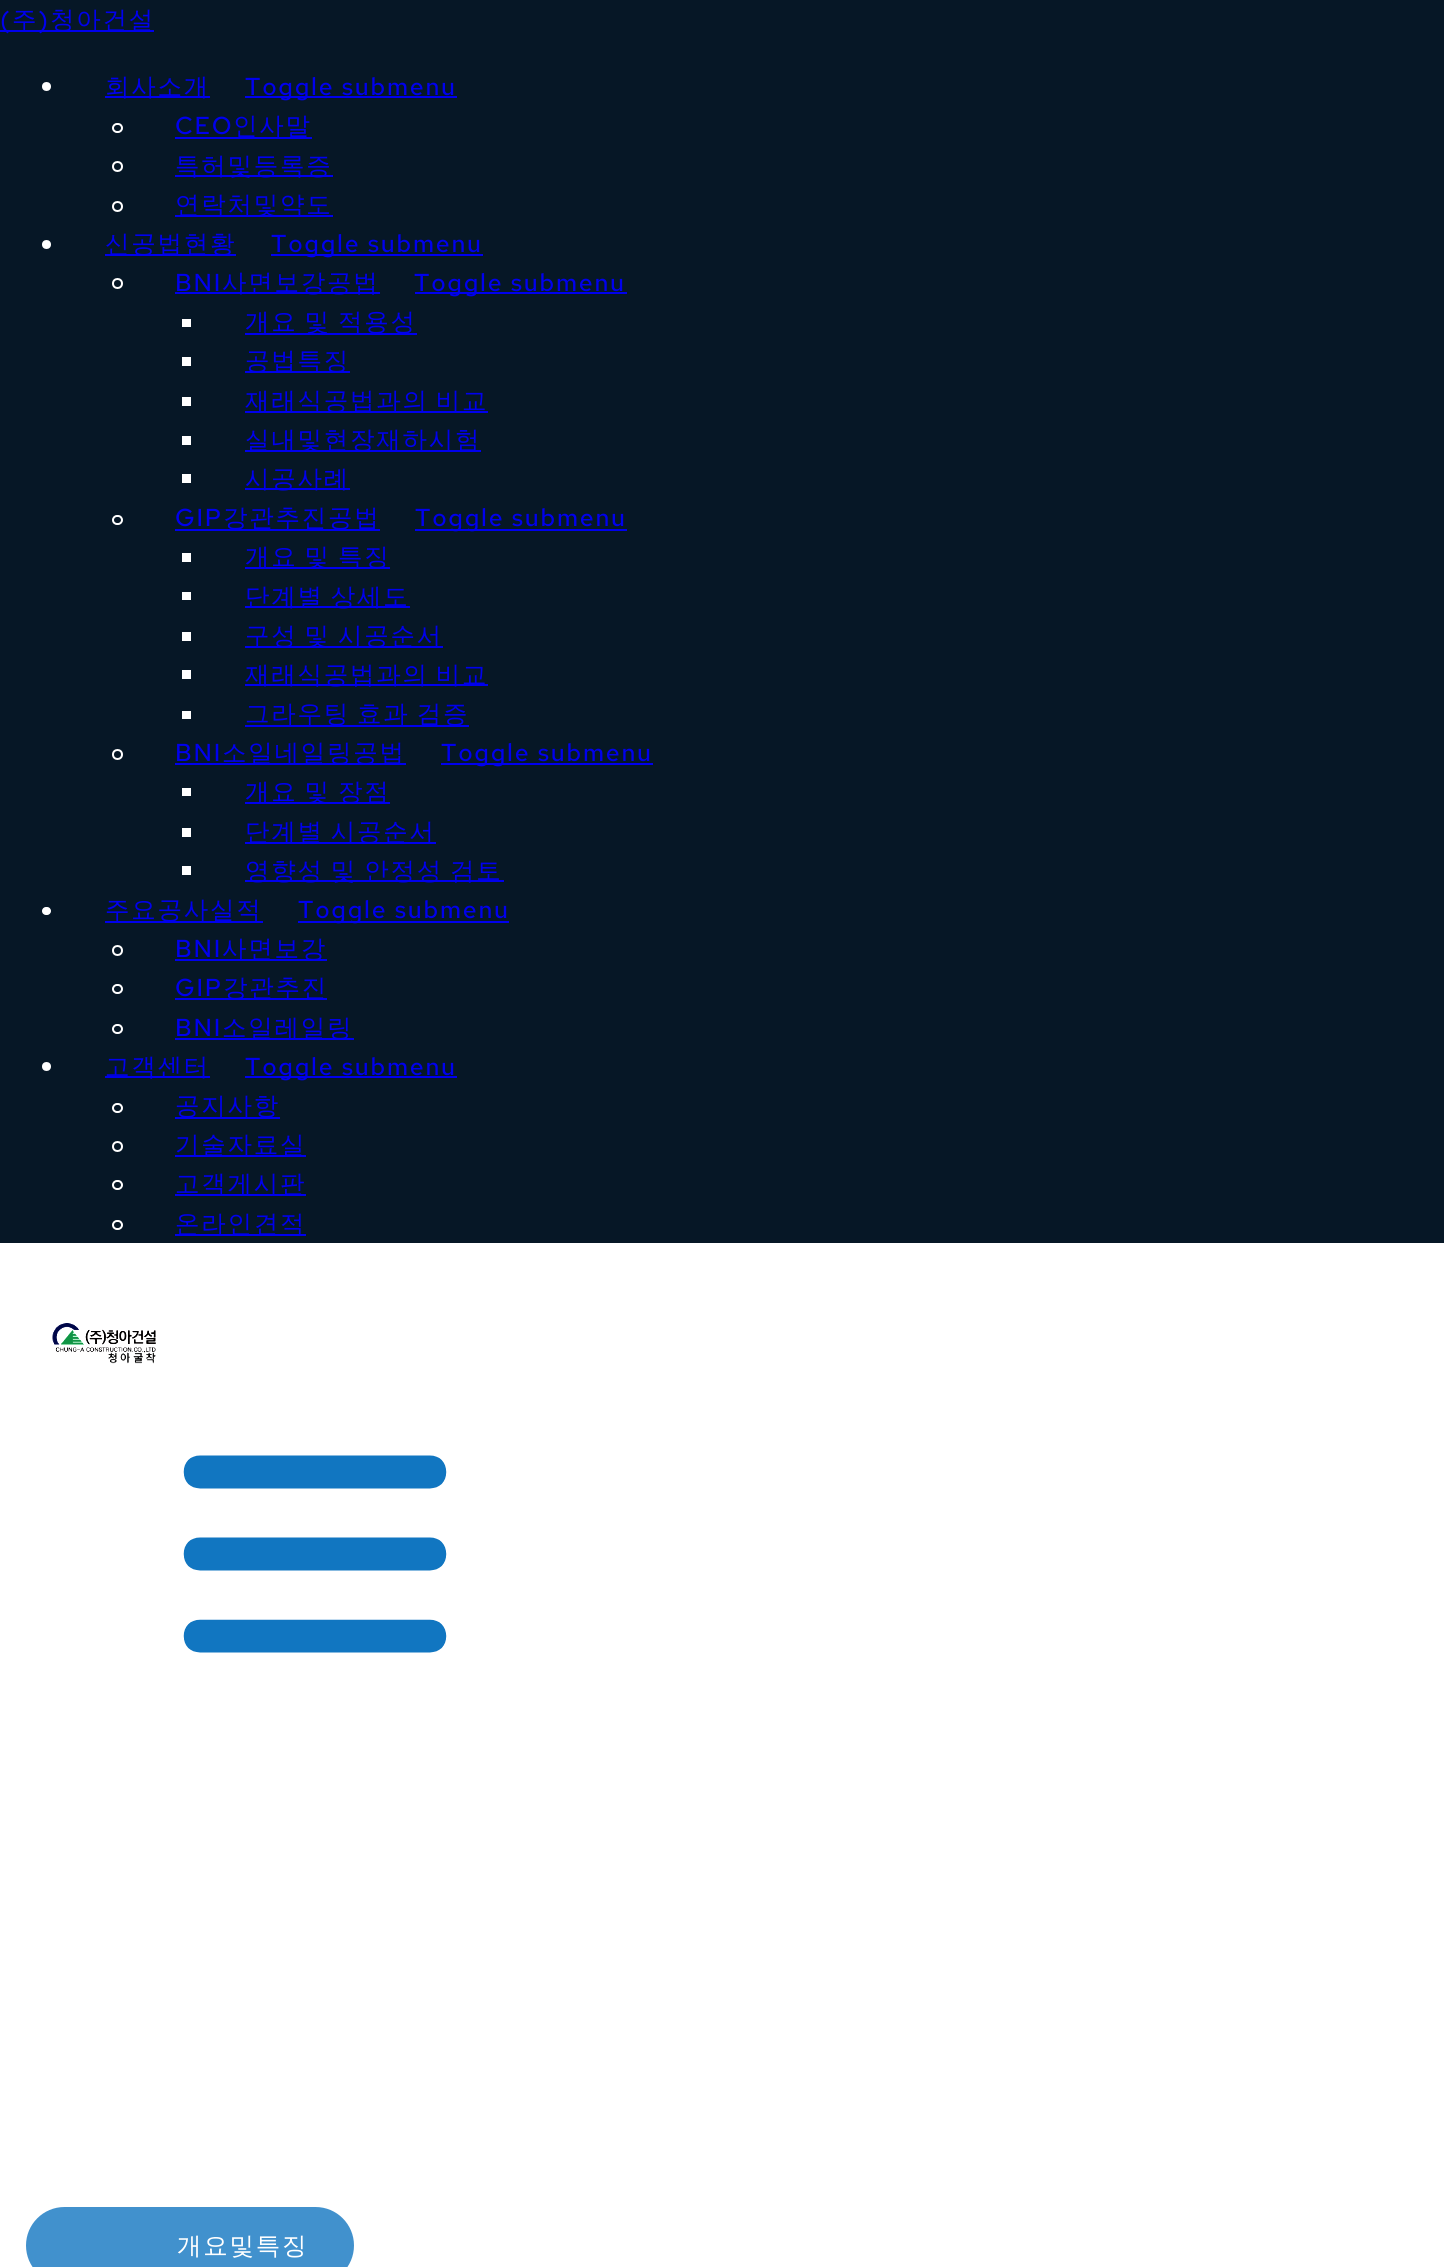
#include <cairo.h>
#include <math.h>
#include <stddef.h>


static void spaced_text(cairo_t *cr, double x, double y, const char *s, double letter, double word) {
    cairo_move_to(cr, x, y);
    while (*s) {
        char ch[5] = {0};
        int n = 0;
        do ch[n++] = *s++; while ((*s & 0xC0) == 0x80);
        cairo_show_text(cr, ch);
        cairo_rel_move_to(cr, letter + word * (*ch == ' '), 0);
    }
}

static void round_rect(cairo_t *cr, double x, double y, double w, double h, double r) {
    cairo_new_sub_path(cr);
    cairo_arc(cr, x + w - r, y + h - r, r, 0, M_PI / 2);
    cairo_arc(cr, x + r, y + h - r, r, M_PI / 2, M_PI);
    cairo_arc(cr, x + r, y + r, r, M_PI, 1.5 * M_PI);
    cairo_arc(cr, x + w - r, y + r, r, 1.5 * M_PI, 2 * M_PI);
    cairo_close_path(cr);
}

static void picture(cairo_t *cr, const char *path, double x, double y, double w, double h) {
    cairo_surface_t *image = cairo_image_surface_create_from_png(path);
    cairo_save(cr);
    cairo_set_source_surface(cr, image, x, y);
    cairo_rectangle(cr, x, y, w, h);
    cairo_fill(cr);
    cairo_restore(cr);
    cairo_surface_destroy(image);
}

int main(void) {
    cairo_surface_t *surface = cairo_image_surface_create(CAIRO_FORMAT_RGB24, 1444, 2267);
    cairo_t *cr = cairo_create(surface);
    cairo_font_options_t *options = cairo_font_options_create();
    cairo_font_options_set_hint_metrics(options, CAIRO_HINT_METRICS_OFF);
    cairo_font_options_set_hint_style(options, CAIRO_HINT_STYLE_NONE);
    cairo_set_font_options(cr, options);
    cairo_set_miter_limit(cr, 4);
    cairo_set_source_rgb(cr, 1, 1, 1);
    cairo_paint(cr);
    cairo_set_source_rgb(cr, 0.024, 0.09, 0.149);
    cairo_rectangle(cr, 0, 0, 1444, 1243);
    cairo_fill(cr);
    cairo_set_source_rgb(cr, 0, 0, 0.933);
    cairo_rectangle(cr, 0, 30, 154, 2);
    cairo_fill(cr);
    cairo_select_font_face(cr, "Red Hat Text Medium", CAIRO_FONT_SLANT_NORMAL, CAIRO_FONT_WEIGHT_NORMAL);
    cairo_set_font_size(cr, 24.5);
    spaced_text(cr, 0, 28, "(", 1.75, 0);
    cairo_select_font_face(cr, "WenQuanYi Zen Hei Medium", CAIRO_FONT_SLANT_NORMAL, CAIRO_FONT_WEIGHT_NORMAL);
    spaced_text(cr, 12, 28, "주", 1.75, 0);
    cairo_select_font_face(cr, "Red Hat Text Medium", CAIRO_FONT_SLANT_NORMAL, CAIRO_FONT_WEIGHT_NORMAL);
    spaced_text(cr, 38, 28, ")", 1.75, 0);
    cairo_select_font_face(cr, "WenQuanYi Zen Hei Medium", CAIRO_FONT_SLANT_NORMAL, CAIRO_FONT_WEIGHT_NORMAL);
    spaced_text(cr, 50, 28, "청아건설", 1.75, 0);
    cairo_set_source_rgb(cr, 1, 1, 1);
    cairo_new_path(cr);
    cairo_arc(cr, 46.5, 86.5, 4.5, 0, 2 * M_PI);
    cairo_fill(cr);
    cairo_set_source_rgb(cr, 0, 0, 0.933);
    cairo_rectangle(cr, 105, 96, 105, 2);
    cairo_fill(cr);
    spaced_text(cr, 105, 95, "회사소개", 1.75, 0);
    cairo_rectangle(cr, 245, 96, 212, 2);
    cairo_fill(cr);
    cairo_select_font_face(cr, "Red Hat Text Medium", CAIRO_FONT_SLANT_NORMAL, CAIRO_FONT_WEIGHT_NORMAL);
    spaced_text(cr, 245, 95, "Toggle submenu", 1.75, 0);
    round_rect(cr, 113, 124, 9, 8, 4);
    cairo_set_source_rgb(cr, 1, 1, 1);
    cairo_stroke(cr);
    cairo_set_source_rgb(cr, 0, 0, 0.933);
    spaced_text(cr, 175, 134, "CEO", 1.75, 0);
    cairo_rectangle(cr, 175, 137, 137, 2);
    cairo_fill(cr);
    cairo_select_font_face(cr, "WenQuanYi Zen Hei Medium", CAIRO_FONT_SLANT_NORMAL, CAIRO_FONT_WEIGHT_NORMAL);
    spaced_text(cr, 233, 134, "인사말", 1.75, 0);
    cairo_new_path(cr);
    cairo_arc(cr, 117.5, 166.5, 4.5, 0, 2 * M_PI);
    cairo_set_source_rgb(cr, 1, 1, 1);
    cairo_stroke(cr);
    cairo_set_source_rgb(cr, 0, 0, 0.933);
    cairo_rectangle(cr, 175, 175, 158, 2);
    cairo_fill(cr);
    spaced_text(cr, 175, 174, "특허및등록증", 1.75, 0);
    cairo_new_path(cr);
    cairo_arc(cr, 117.5, 206.5, 4.5, 0, 2 * M_PI);
    cairo_set_source_rgb(cr, 1, 1, 1);
    cairo_stroke(cr);
    cairo_set_source_rgb(cr, 0, 0, 0.933);
    cairo_rectangle(cr, 175, 215, 158, 2);
    cairo_fill(cr);
    spaced_text(cr, 175, 213, "연락처및약도", 1.75, 0);
    cairo_set_source_rgb(cr, 1, 1, 1);
    cairo_new_path(cr);
    cairo_arc(cr, 46.5, 244.5, 4.5, 0, 2 * M_PI);
    cairo_fill(cr);
    cairo_set_source_rgb(cr, 0, 0, 0.933);
    cairo_rectangle(cr, 105, 254, 131, 2);
    cairo_fill(cr);
    spaced_text(cr, 105, 252, "신공법현황", 1.75, 0);
    cairo_rectangle(cr, 271, 254, 212, 2);
    cairo_fill(cr);
    cairo_select_font_face(cr, "Red Hat Text Medium", CAIRO_FONT_SLANT_NORMAL, CAIRO_FONT_WEIGHT_NORMAL);
    spaced_text(cr, 271, 252, "Toggle submenu", 1.75, 0);
    cairo_new_path(cr);
    cairo_arc(cr, 117.5, 283.5, 4.5, 0, 2 * M_PI);
    cairo_set_source_rgb(cr, 1, 1, 1);
    cairo_stroke(cr);
    cairo_set_source_rgb(cr, 0, 0, 0.933);
    spaced_text(cr, 175, 291, "BNI", 1.75, 0);
    cairo_rectangle(cr, 175, 292, 205, 2);
    cairo_fill(cr);
    cairo_select_font_face(cr, "WenQuanYi Zen Hei Medium", CAIRO_FONT_SLANT_NORMAL, CAIRO_FONT_WEIGHT_NORMAL);
    spaced_text(cr, 222, 291, "사면보강공법", 1.75, 0);
    cairo_rectangle(cr, 415, 292, 212, 2);
    cairo_fill(cr);
    cairo_select_font_face(cr, "Red Hat Text Medium", CAIRO_FONT_SLANT_NORMAL, CAIRO_FONT_WEIGHT_NORMAL);
    spaced_text(cr, 414, 291, "Toggle submenu", 1.75, 0);
    cairo_set_source_rgb(cr, 1, 1, 1);
    cairo_rectangle(cr, 182, 319, 9, 8);
    cairo_fill(cr);
    cairo_set_source_rgb(cr, 0, 0, 0.933);
    cairo_rectangle(cr, 245, 333, 172, 2);
    cairo_fill(cr);
    cairo_select_font_face(cr, "WenQuanYi Zen Hei Medium", CAIRO_FONT_SLANT_NORMAL, CAIRO_FONT_WEIGHT_NORMAL);
    spaced_text(cr, 245, 330, "개요 및 적용성", 1.75, -2);
    cairo_set_source_rgb(cr, 1, 1, 1);
    cairo_rectangle(cr, 182, 357, 9, 9);
    cairo_fill(cr);
    cairo_set_source_rgb(cr, 0, 0, 0.933);
    cairo_rectangle(cr, 245, 371, 105, 2);
    cairo_fill(cr);
    spaced_text(cr, 245, 369, "공법특징", 1.75, 0);
    cairo_set_source_rgb(cr, 1, 1, 1);
    cairo_rectangle(cr, 182, 397, 9, 9);
    cairo_fill(cr);
    cairo_set_source_rgb(cr, 0, 0, 0.933);
    cairo_rectangle(cr, 245, 411, 243, 2);
    cairo_fill(cr);
    spaced_text(cr, 245, 409, "재래식공법과의 비교", 1.75, -2);
    cairo_set_source_rgb(cr, 1, 1, 1);
    cairo_rectangle(cr, 182, 436, 9, 9);
    cairo_fill(cr);
    cairo_set_source_rgb(cr, 0, 0, 0.933);
    cairo_rectangle(cr, 245, 450, 236, 2);
    cairo_fill(cr);
    spaced_text(cr, 245, 448, "실내및현장재하시험", 1.75, 0);
    cairo_set_source_rgb(cr, 1, 1, 1);
    cairo_rectangle(cr, 182, 474, 9, 9);
    cairo_fill(cr);
    cairo_set_source_rgb(cr, 0, 0, 0.933);
    cairo_rectangle(cr, 245, 488, 105, 2);
    cairo_fill(cr);
    spaced_text(cr, 245, 487, "시공사례", 1.75, 0);
    round_rect(cr, 113, 516, 9, 8, 4);
    cairo_set_source_rgb(cr, 1, 1, 1);
    cairo_stroke(cr);
    cairo_select_font_face(cr, "Red Hat Text Medium", CAIRO_FONT_SLANT_NORMAL, CAIRO_FONT_WEIGHT_NORMAL);
    cairo_set_source_rgb(cr, 0, 0, 0.933);
    spaced_text(cr, 175, 526, "GIP", 1.75, 0);
    cairo_rectangle(cr, 175, 529, 205, 2);
    cairo_fill(cr);
    cairo_select_font_face(cr, "WenQuanYi Zen Hei Medium", CAIRO_FONT_SLANT_NORMAL, CAIRO_FONT_WEIGHT_NORMAL);
    spaced_text(cr, 223, 526, "강관추진공법", 1.75, 0);
    cairo_rectangle(cr, 415, 529, 212, 2);
    cairo_fill(cr);
    cairo_select_font_face(cr, "Red Hat Text Medium", CAIRO_FONT_SLANT_NORMAL, CAIRO_FONT_WEIGHT_NORMAL);
    spaced_text(cr, 415, 526, "Toggle submenu", 1.75, 0);
    cairo_set_source_rgb(cr, 1, 1, 1);
    cairo_rectangle(cr, 182, 553, 9, 9);
    cairo_fill(cr);
    cairo_set_source_rgb(cr, 0, 0, 0.933);
    cairo_rectangle(cr, 245, 567, 145, 2);
    cairo_fill(cr);
    cairo_select_font_face(cr, "WenQuanYi Zen Hei Medium", CAIRO_FONT_SLANT_NORMAL, CAIRO_FONT_WEIGHT_NORMAL);
    spaced_text(cr, 245, 565, "개요 및 특징", 1.75, -2);
    cairo_set_source_rgb(cr, 1, 1, 1);
    cairo_rectangle(cr, 182, 592, 9, 8);
    cairo_fill(cr);
    cairo_set_source_rgb(cr, 0, 0, 0.933);
    cairo_rectangle(cr, 245, 606, 165, 2);
    cairo_fill(cr);
    spaced_text(cr, 245, 605, "단계별 상세도", 1.75, -2);
    cairo_set_source_rgb(cr, 1, 1, 1);
    cairo_rectangle(cr, 182, 632, 9, 9);
    cairo_fill(cr);
    cairo_set_source_rgb(cr, 0, 0, 0.933);
    cairo_rectangle(cr, 245, 646, 198, 2);
    cairo_fill(cr);
    spaced_text(cr, 245, 644, "구성 및 시공순서", 1.75, -2);
    cairo_set_source_rgb(cr, 1, 1, 1);
    cairo_rectangle(cr, 182, 670, 9, 9);
    cairo_fill(cr);
    cairo_set_source_rgb(cr, 0, 0, 0.933);
    cairo_rectangle(cr, 245, 684, 243, 2);
    cairo_fill(cr);
    spaced_text(cr, 245, 683, "재래식공법과의 비교", 1.75, -2);
    cairo_set_source_rgb(cr, 1, 1, 1);
    cairo_rectangle(cr, 182, 711, 9, 8);
    cairo_fill(cr);
    cairo_set_source_rgb(cr, 0, 0, 0.933);
    cairo_rectangle(cr, 245, 725, 224, 2);
    cairo_fill(cr);
    spaced_text(cr, 245, 722, "그라우팅 효과 검증", 1.75, -2);
    cairo_new_path(cr);
    cairo_arc(cr, 117.5, 754.5, 4.5, 0, 2 * M_PI);
    cairo_set_source_rgb(cr, 1, 1, 1);
    cairo_stroke(cr);
    cairo_select_font_face(cr, "Red Hat Text Medium", CAIRO_FONT_SLANT_NORMAL, CAIRO_FONT_WEIGHT_NORMAL);
    cairo_set_source_rgb(cr, 0, 0, 0.933);
    spaced_text(cr, 175, 761, "BNI", 1.75, 0);
    cairo_rectangle(cr, 175, 763, 231, 2);
    cairo_fill(cr);
    cairo_select_font_face(cr, "WenQuanYi Zen Hei Medium", CAIRO_FONT_SLANT_NORMAL, CAIRO_FONT_WEIGHT_NORMAL);
    spaced_text(cr, 222, 761, "소일네일링공법", 1.75, 0);
    cairo_rectangle(cr, 441, 763, 212, 2);
    cairo_fill(cr);
    cairo_select_font_face(cr, "Red Hat Text Medium", CAIRO_FONT_SLANT_NORMAL, CAIRO_FONT_WEIGHT_NORMAL);
    spaced_text(cr, 441, 761, "Toggle submenu", 1.75, 0);
    cairo_set_source_rgb(cr, 1, 1, 1);
    cairo_rectangle(cr, 182, 788, 9, 8);
    cairo_fill(cr);
    cairo_set_source_rgb(cr, 0, 0, 0.933);
    cairo_rectangle(cr, 245, 802, 145, 2);
    cairo_fill(cr);
    cairo_select_font_face(cr, "WenQuanYi Zen Hei Medium", CAIRO_FONT_SLANT_NORMAL, CAIRO_FONT_WEIGHT_NORMAL);
    spaced_text(cr, 245, 800, "개요 및 장점", 1.75, -2);
    cairo_set_source_rgb(cr, 1, 1, 1);
    cairo_rectangle(cr, 182, 828, 9, 9);
    cairo_fill(cr);
    cairo_set_source_rgb(cr, 0, 0, 0.933);
    cairo_rectangle(cr, 245, 842, 191, 2);
    cairo_fill(cr);
    spaced_text(cr, 245, 840, "단계별 시공순서", 1.75, -2);
    cairo_set_source_rgb(cr, 1, 1, 1);
    cairo_rectangle(cr, 182, 866, 9, 9);
    cairo_fill(cr);
    cairo_set_source_rgb(cr, 0, 0, 0.933);
    cairo_rectangle(cr, 245, 880, 259, 2);
    cairo_fill(cr);
    spaced_text(cr, 245, 879, "영향성 및 안정성 검토", 1.75, -2);
    cairo_set_source_rgb(cr, 1, 1, 1);
    round_rect(cr, 42, 907, 9, 8, 4);
    cairo_fill(cr);
    cairo_set_source_rgb(cr, 0, 0, 0.933);
    cairo_rectangle(cr, 105, 921, 158, 2);
    cairo_fill(cr);
    spaced_text(cr, 105, 918, "주요공사실적", 1.75, 0);
    cairo_rectangle(cr, 298, 921, 211, 2);
    cairo_fill(cr);
    cairo_select_font_face(cr, "Red Hat Text Medium", CAIRO_FONT_SLANT_NORMAL, CAIRO_FONT_WEIGHT_NORMAL);
    spaced_text(cr, 298, 918, "Toggle submenu", 1.75, 0);
    cairo_new_path(cr);
    cairo_arc(cr, 117.5, 950.5, 4.5, 0, 2 * M_PI);
    cairo_set_source_rgb(cr, 1, 1, 1);
    cairo_stroke(cr);
    cairo_set_source_rgb(cr, 0, 0, 0.933);
    spaced_text(cr, 175, 957, "BNI", 1.75, 0);
    cairo_rectangle(cr, 175, 959, 152, 2);
    cairo_fill(cr);
    cairo_select_font_face(cr, "WenQuanYi Zen Hei Medium", CAIRO_FONT_SLANT_NORMAL, CAIRO_FONT_WEIGHT_NORMAL);
    spaced_text(cr, 222, 957, "사면보강", 1.75, 0);
    round_rect(cr, 113, 985, 9, 8, 4);
    cairo_set_source_rgb(cr, 1, 1, 1);
    cairo_stroke(cr);
    cairo_select_font_face(cr, "Red Hat Text Medium", CAIRO_FONT_SLANT_NORMAL, CAIRO_FONT_WEIGHT_NORMAL);
    cairo_set_source_rgb(cr, 0, 0, 0.933);
    spaced_text(cr, 175, 996, "GIP", 1.75, 0);
    cairo_rectangle(cr, 175, 998, 152, 2);
    cairo_fill(cr);
    cairo_select_font_face(cr, "WenQuanYi Zen Hei Medium", CAIRO_FONT_SLANT_NORMAL, CAIRO_FONT_WEIGHT_NORMAL);
    spaced_text(cr, 223, 996, "강관추진", 1.75, 0);
    round_rect(cr, 113, 1025, 9, 8, 4);
    cairo_set_source_rgb(cr, 1, 1, 1);
    cairo_stroke(cr);
    cairo_select_font_face(cr, "Red Hat Text Medium", CAIRO_FONT_SLANT_NORMAL, CAIRO_FONT_WEIGHT_NORMAL);
    cairo_set_source_rgb(cr, 0, 0, 0.933);
    spaced_text(cr, 175, 1036, "BNI", 1.75, 0);
    cairo_rectangle(cr, 175, 1038, 179, 2);
    cairo_fill(cr);
    cairo_select_font_face(cr, "WenQuanYi Zen Hei Medium", CAIRO_FONT_SLANT_NORMAL, CAIRO_FONT_WEIGHT_NORMAL);
    spaced_text(cr, 222, 1036, "소일레일링", 1.75, 0);
    cairo_set_source_rgb(cr, 1, 1, 1);
    cairo_new_path(cr);
    cairo_arc(cr, 46.5, 1066.5, 4.5, 0, 2 * M_PI);
    cairo_fill(cr);
    cairo_set_source_rgb(cr, 0, 0, 0.933);
    cairo_rectangle(cr, 105, 1076, 105, 2);
    cairo_fill(cr);
    spaced_text(cr, 105, 1075, "고객센터", 1.75, 0);
    cairo_rectangle(cr, 245, 1076, 212, 2);
    cairo_fill(cr);
    cairo_select_font_face(cr, "Red Hat Text Medium", CAIRO_FONT_SLANT_NORMAL, CAIRO_FONT_WEIGHT_NORMAL);
    spaced_text(cr, 245, 1075, "Toggle submenu", 1.75, 0);
    round_rect(cr, 113, 1104, 9, 8, 4);
    cairo_set_source_rgb(cr, 1, 1, 1);
    cairo_stroke(cr);
    cairo_set_source_rgb(cr, 0, 0, 0.933);
    cairo_rectangle(cr, 175, 1117, 105, 2);
    cairo_fill(cr);
    cairo_select_font_face(cr, "WenQuanYi Zen Hei Medium", CAIRO_FONT_SLANT_NORMAL, CAIRO_FONT_WEIGHT_NORMAL);
    spaced_text(cr, 175, 1114, "공지사항", 1.75, 0);
    cairo_new_path(cr);
    cairo_arc(cr, 117.5, 1146.5, 4.5, 0, 2 * M_PI);
    cairo_set_source_rgb(cr, 1, 1, 1);
    cairo_stroke(cr);
    cairo_set_source_rgb(cr, 0, 0, 0.933);
    cairo_rectangle(cr, 175, 1155, 131, 2);
    cairo_fill(cr);
    spaced_text(cr, 175, 1153, "기술자료실", 1.75, 0);
    round_rect(cr, 113, 1181, 9, 8, 4);
    cairo_set_source_rgb(cr, 1, 1, 1);
    cairo_stroke(cr);
    cairo_set_source_rgb(cr, 0, 0, 0.933);
    cairo_rectangle(cr, 175, 1194, 131, 2);
    cairo_fill(cr);
    spaced_text(cr, 175, 1192, "고객게시판", 1.75, 0);
    round_rect(cr, 113, 1221, 9, 8, 4);
    cairo_set_source_rgb(cr, 1, 1, 1);
    cairo_stroke(cr);
    cairo_set_source_rgb(cr, 0, 0, 0.933);
    cairo_rectangle(cr, 175, 1234, 131, 2);
    cairo_fill(cr);
    spaced_text(cr, 175, 1232, "온라인견적", 1.75, 0);
    picture(cr, "img1.png", 52, 1323, 104, 41);
    picture(cr, "img2.png", 183, 1455, 264, 198);
    cairo_set_source_rgb(cr, 0.255, 0.569, 0.804);
    round_rect(cr, 26, 2207, 328, 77, 38.5);
    cairo_fill(cr);
    cairo_set_source_rgb(cr, 1, 1, 1);
    spaced_text(cr, 177, 2254, "개요및특징", 1.75, 0);
    cairo_surface_write_to_png(surface, "page.png");
    cairo_font_options_destroy(options);
    cairo_destroy(cr);
    cairo_surface_destroy(surface);
    return 0;
}
